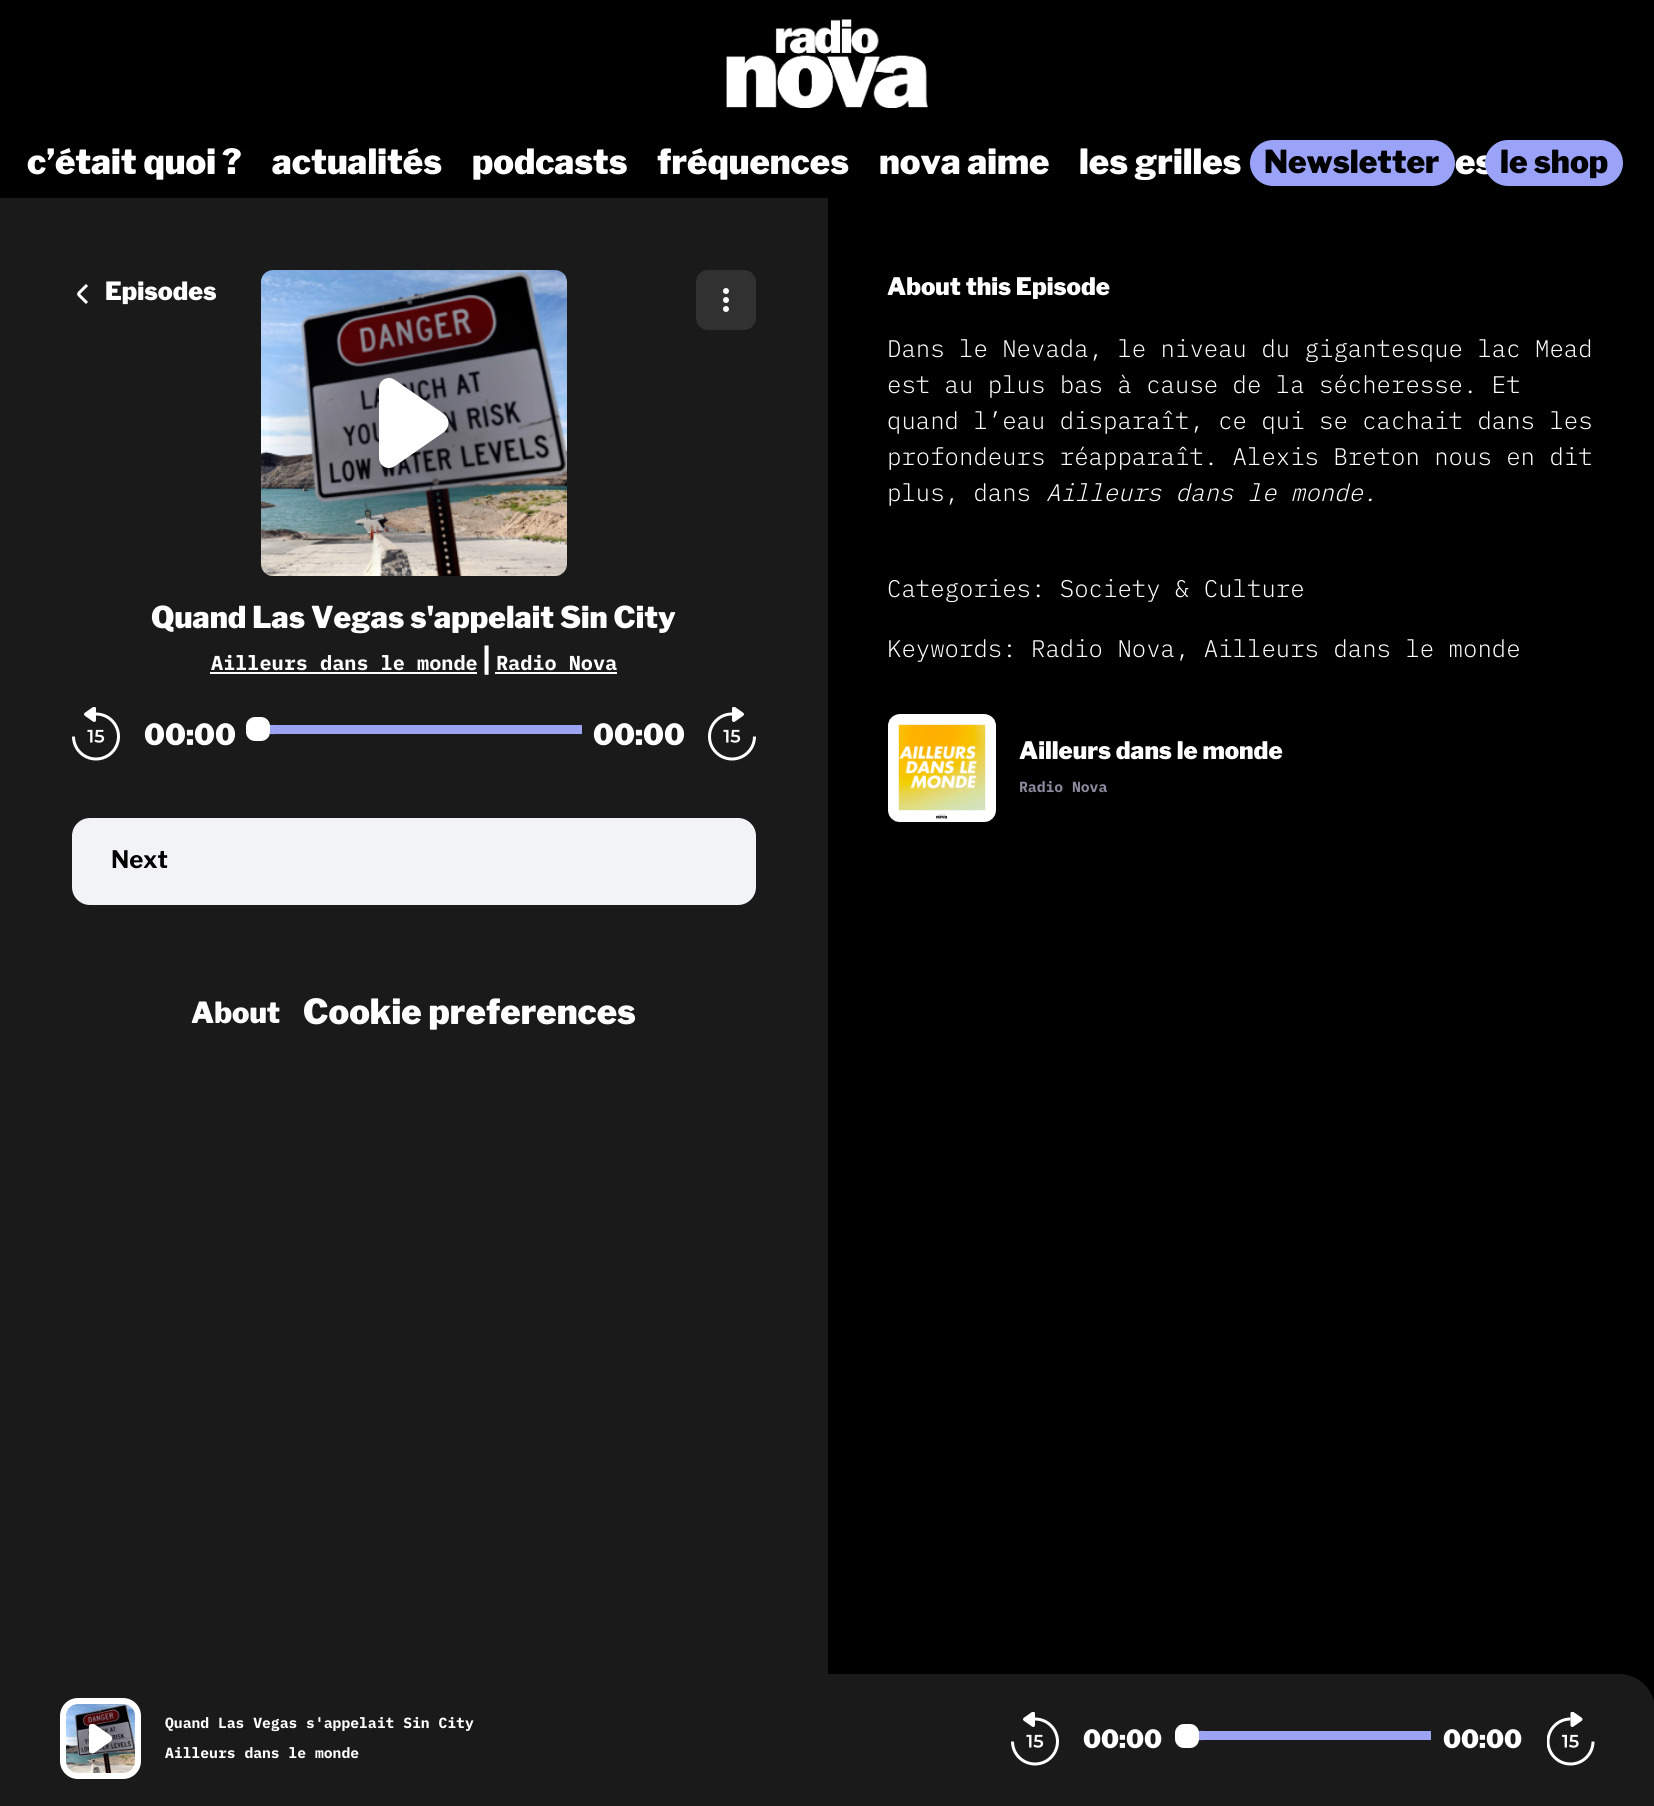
#include <cairo.h>
#include <math.h>
#include <stddef.h>


static void round_rect(cairo_t *cr, double x, double y, double w, double h, double r) {
    cairo_new_sub_path(cr);
    cairo_arc(cr, x + w - r, y + h - r, r, 0, M_PI / 2);
    cairo_arc(cr, x + r, y + h - r, r, M_PI / 2, M_PI);
    cairo_arc(cr, x + r, y + r, r, M_PI, 1.5 * M_PI);
    cairo_arc(cr, x + w - r, y + r, r, 1.5 * M_PI, 2 * M_PI);
    cairo_close_path(cr);
}

static void picture(cairo_t *cr, const char *path, double x, double y, double w, double h) {
    cairo_surface_t *image = cairo_image_surface_create_from_png(path);
    cairo_save(cr);
    cairo_set_source_surface(cr, image, x, y);
    cairo_rectangle(cr, x, y, w, h);
    cairo_fill(cr);
    cairo_restore(cr);
    cairo_surface_destroy(image);
}

int main(void) {
    cairo_surface_t *surface = cairo_image_surface_create(CAIRO_FORMAT_RGB24, 1654, 1806);
    cairo_t *cr = cairo_create(surface);
    cairo_font_options_t *options = cairo_font_options_create();
    cairo_font_options_set_hint_metrics(options, CAIRO_HINT_METRICS_OFF);
    cairo_font_options_set_hint_style(options, CAIRO_HINT_STYLE_NONE);
    cairo_set_font_options(cr, options);
    cairo_set_miter_limit(cr, 4);
    cairo_pattern_t *gradient;
    cairo_set_source_rgb(cr, 0.102, 0.102, 0.106);
    cairo_paint(cr);
    cairo_set_source_rgb(cr, 0, 0, 0);
    cairo_rectangle(cr, 0, 0, 1654, 198);
    cairo_fill(cr);
    picture(cr, "img1.png", 726, 19, 203, 89);
    cairo_select_font_face(cr, "Libre Franklin Black", CAIRO_FONT_SLANT_NORMAL, CAIRO_FONT_WEIGHT_NORMAL);
    cairo_set_font_size(cr, 34.5);
    cairo_set_source_rgb(cr, 1, 1, 1);
    cairo_move_to(cr, 27, 174);
    cairo_show_text(cr, "c’était quoi ?");
    cairo_move_to(cr, 272, 174);
    cairo_show_text(cr, "actualités");
    cairo_move_to(cr, 472, 174);
    cairo_show_text(cr, "podcasts");
    cairo_move_to(cr, 657, 174);
    cairo_show_text(cr, "fréquences");
    cairo_move_to(cr, 879, 174);
    cairo_show_text(cr, "nova aime");
    cairo_move_to(cr, 1079, 174);
    cairo_show_text(cr, "les grilles");
    cairo_move_to(cr, 1455, 174);
    cairo_show_text(cr, "es");
    cairo_set_source_rgb(cr, 0.608, 0.639, 0.973);
    round_rect(cr, 1250, 140, 205, 46, 23);
    cairo_fill(cr);
    cairo_set_font_size(cr, 31.5);
    cairo_set_source_rgb(cr, 0, 0, 0);
    cairo_move_to(cr, 1264, 173);
    cairo_show_text(cr, "Newsletter");
    cairo_set_source_rgb(cr, 0.608, 0.639, 0.973);
    round_rect(cr, 1485, 140, 138, 46, 23);
    cairo_fill(cr);
    cairo_set_source_rgb(cr, 0, 0, 0);
    cairo_move_to(cr, 1500, 173);
    cairo_show_text(cr, "le shop");
    cairo_new_path(cr);
    cairo_move_to(cr, 87, 285);
    cairo_line_to(cr, 79, 293);
    cairo_curve_to(cr, 78.5, 293.5, 78.5, 294.5, 79, 295);
    cairo_line_to(cr, 87, 303);
    cairo_set_source_rgb(cr, 1, 1, 1);
    cairo_set_line_width(cr, 3);
    cairo_stroke(cr);
    cairo_set_font_size(cr, 25);
    cairo_move_to(cr, 105, 300);
    cairo_show_text(cr, "Episodes");
    cairo_set_source_rgb(cr, 0.192, 0.192, 0.196);
    round_rect(cr, 696, 270, 60, 60, 12);
    cairo_fill(cr);
    picture(cr, "img2.png", 723, 288, 6, 24);
    picture(cr, "img3.png", 261, 270, 306, 306);
    gradient = cairo_pattern_create_radial(414, 423, 0, 414, 423, 153);
    cairo_pattern_add_color_stop_rgba(gradient, 0, 0.094, 0.09, 0.141, 0.4);
    cairo_pattern_add_color_stop_rgba(gradient, 1, 0.094, 0.09, 0.141, 0);
    cairo_set_source(cr, gradient);
    cairo_pattern_destroy(gradient);
    cairo_rectangle(cr, 269, 278, 290, 290);
    cairo_fill(cr);
    cairo_set_source_rgb(cr, 1, 1, 1);
    cairo_new_path(cr);
    cairo_move_to(cr, 379, 458);
    cairo_line_to(cr, 379, 388);
    cairo_curve_to(cr, 379, 380, 388, 375, 395, 380);
    cairo_line_to(cr, 444, 414);
    cairo_curve_to(cr, 450, 419, 450, 427, 444, 432);
    cairo_line_to(cr, 395, 466);
    cairo_curve_to(cr, 388, 471, 379, 466, 379, 458);
    cairo_close_path(cr);
    cairo_fill(cr);
    cairo_set_font_size(cr, 30);
    cairo_move_to(cr, 151, 628);
    cairo_show_text(cr, "Quand Las Vegas s'appelait Sin City");
    cairo_select_font_face(cr, "IBM Plex Mono", CAIRO_FONT_SLANT_NORMAL, CAIRO_FONT_WEIGHT_BOLD);
    cairo_set_font_size(cr, 20.2);
    cairo_move_to(cr, 211, 670);
    cairo_show_text(cr, "Ailleurs dans le monde");
    cairo_rectangle(cr, 210, 672, 267, 2);
    cairo_fill(cr);
    cairo_select_font_face(cr, "Libre Franklin Black", CAIRO_FONT_SLANT_NORMAL, CAIRO_FONT_WEIGHT_NORMAL);
    cairo_set_font_size(cr, 29);
    cairo_move_to(cr, 483, 670);
    cairo_show_text(cr, "|");
    cairo_select_font_face(cr, "IBM Plex Mono", CAIRO_FONT_SLANT_NORMAL, CAIRO_FONT_WEIGHT_BOLD);
    cairo_set_font_size(cr, 20.2);
    cairo_move_to(cr, 496, 670);
    cairo_show_text(cr, "Radio Nova");
    cairo_rectangle(cr, 495, 672, 122, 2);
    cairo_fill(cr);
    picture(cr, "img4.png", 72, 707, 48, 54);
    cairo_select_font_face(cr, "Libre Franklin Black", CAIRO_FONT_SLANT_NORMAL, CAIRO_FONT_WEIGHT_NORMAL);
    cairo_set_font_size(cr, 29);
    cairo_move_to(cr, 144, 745);
    cairo_show_text(cr, "00:00");
    cairo_set_source_rgb(cr, 0.612, 0.639, 0.949);
    cairo_rectangle(cr, 580, 725, 2, 9);
    cairo_fill(cr);
    round_rect(cr, 573, 725, 9, 9, 1.5);
    cairo_fill(cr);
    round_rect(cr, 572, 725, 9, 9, 1.5);
    cairo_fill(cr);
    round_rect(cr, 570, 725, 9, 9, 1.5);
    cairo_fill(cr);
    round_rect(cr, 569, 725, 9, 9, 1.5);
    cairo_fill(cr);
    round_rect(cr, 567, 725, 9, 9, 1.5);
    cairo_fill(cr);
    round_rect(cr, 566, 725, 9, 9, 1.5);
    cairo_fill(cr);
    round_rect(cr, 564, 725, 9, 9, 1.5);
    cairo_fill(cr);
    round_rect(cr, 563, 725, 9, 9, 1.5);
    cairo_fill(cr);
    round_rect(cr, 561, 725, 9, 9, 1.5);
    cairo_fill(cr);
    round_rect(cr, 560, 725, 9, 9, 1.5);
    cairo_fill(cr);
    round_rect(cr, 558, 725, 9, 9, 1.5);
    cairo_fill(cr);
    round_rect(cr, 557, 725, 9, 9, 1.5);
    cairo_fill(cr);
    round_rect(cr, 555, 725, 9, 9, 1.5);
    cairo_fill(cr);
    round_rect(cr, 554, 725, 9, 9, 1.5);
    cairo_fill(cr);
    round_rect(cr, 552, 725, 9, 9, 1.5);
    cairo_fill(cr);
    round_rect(cr, 551, 725, 9, 9, 1.5);
    cairo_fill(cr);
    round_rect(cr, 549, 725, 9, 9, 1.5);
    cairo_fill(cr);
    round_rect(cr, 548, 725, 9, 9, 1.5);
    cairo_fill(cr);
    round_rect(cr, 546, 725, 9, 9, 1.5);
    cairo_fill(cr);
    round_rect(cr, 545, 725, 9, 9, 1.5);
    cairo_fill(cr);
    round_rect(cr, 543, 725, 9, 9, 1.5);
    cairo_fill(cr);
    round_rect(cr, 542, 725, 9, 9, 1.5);
    cairo_fill(cr);
    round_rect(cr, 540, 725, 9, 9, 1.5);
    cairo_fill(cr);
    round_rect(cr, 539, 725, 9, 9, 1.5);
    cairo_fill(cr);
    round_rect(cr, 537, 725, 9, 9, 1.5);
    cairo_fill(cr);
    round_rect(cr, 536, 725, 9, 9, 1.5);
    cairo_fill(cr);
    round_rect(cr, 534, 725, 9, 9, 1.5);
    cairo_fill(cr);
    round_rect(cr, 533, 725, 9, 9, 1.5);
    cairo_fill(cr);
    round_rect(cr, 531, 725, 9, 9, 1.5);
    cairo_fill(cr);
    round_rect(cr, 530, 725, 9, 9, 1.5);
    cairo_fill(cr);
    round_rect(cr, 528, 725, 9, 9, 1.5);
    cairo_fill(cr);
    round_rect(cr, 527, 725, 9, 9, 1.5);
    cairo_fill(cr);
    round_rect(cr, 525, 725, 9, 9, 1.5);
    cairo_fill(cr);
    round_rect(cr, 524, 725, 9, 9, 1.5);
    cairo_fill(cr);
    round_rect(cr, 522, 725, 9, 9, 1.5);
    cairo_fill(cr);
    round_rect(cr, 521, 725, 9, 9, 1.5);
    cairo_fill(cr);
    round_rect(cr, 519, 725, 9, 9, 1.5);
    cairo_fill(cr);
    round_rect(cr, 518, 725, 9, 9, 1.5);
    cairo_fill(cr);
    round_rect(cr, 516, 725, 9, 9, 1.5);
    cairo_fill(cr);
    round_rect(cr, 515, 725, 9, 9, 1.5);
    cairo_fill(cr);
    round_rect(cr, 513, 725, 9, 9, 1.5);
    cairo_fill(cr);
    round_rect(cr, 512, 725, 9, 9, 1.5);
    cairo_fill(cr);
    round_rect(cr, 510, 725, 9, 9, 1.5);
    cairo_fill(cr);
    round_rect(cr, 509, 725, 9, 9, 1.5);
    cairo_fill(cr);
    round_rect(cr, 507, 725, 9, 9, 1.5);
    cairo_fill(cr);
    round_rect(cr, 506, 725, 9, 9, 1.5);
    cairo_fill(cr);
    round_rect(cr, 504, 725, 9, 9, 1.5);
    cairo_fill(cr);
    round_rect(cr, 503, 725, 9, 9, 1.5);
    cairo_fill(cr);
    round_rect(cr, 501, 725, 9, 9, 1.5);
    cairo_fill(cr);
    round_rect(cr, 500, 725, 9, 9, 1.5);
    cairo_fill(cr);
    round_rect(cr, 498, 725, 9, 9, 1.5);
    cairo_fill(cr);
    round_rect(cr, 497, 725, 9, 9, 1.5);
    cairo_fill(cr);
    round_rect(cr, 495, 725, 9, 9, 1.5);
    cairo_fill(cr);
    round_rect(cr, 494, 725, 9, 9, 1.5);
    cairo_fill(cr);
    round_rect(cr, 492, 725, 9, 9, 1.5);
    cairo_fill(cr);
    round_rect(cr, 491, 725, 9, 9, 1.5);
    cairo_fill(cr);
    round_rect(cr, 489, 725, 9, 9, 1.5);
    cairo_fill(cr);
    round_rect(cr, 488, 725, 9, 9, 1.5);
    cairo_fill(cr);
    round_rect(cr, 486, 725, 9, 9, 1.5);
    cairo_fill(cr);
    round_rect(cr, 485, 725, 9, 9, 1.5);
    cairo_fill(cr);
    round_rect(cr, 483, 725, 9, 9, 1.5);
    cairo_fill(cr);
    round_rect(cr, 482, 725, 9, 9, 1.5);
    cairo_fill(cr);
    round_rect(cr, 480, 725, 9, 9, 1.5);
    cairo_fill(cr);
    round_rect(cr, 479, 725, 9, 9, 1.5);
    cairo_fill(cr);
    round_rect(cr, 477, 725, 9, 9, 1.5);
    cairo_fill(cr);
    round_rect(cr, 476, 725, 9, 9, 1.5);
    cairo_fill(cr);
    round_rect(cr, 474, 725, 9, 9, 1.5);
    cairo_fill(cr);
    round_rect(cr, 473, 725, 9, 9, 1.5);
    cairo_fill(cr);
    round_rect(cr, 471, 725, 9, 9, 1.5);
    cairo_fill(cr);
    round_rect(cr, 470, 725, 9, 9, 1.5);
    cairo_fill(cr);
    round_rect(cr, 468, 725, 9, 9, 1.5);
    cairo_fill(cr);
    round_rect(cr, 467, 725, 9, 9, 1.5);
    cairo_fill(cr);
    round_rect(cr, 465, 725, 9, 9, 1.5);
    cairo_fill(cr);
    round_rect(cr, 464, 725, 9, 9, 1.5);
    cairo_fill(cr);
    round_rect(cr, 462, 725, 9, 9, 1.5);
    cairo_fill(cr);
    round_rect(cr, 461, 725, 9, 9, 1.5);
    cairo_fill(cr);
    round_rect(cr, 459, 725, 9, 9, 1.5);
    cairo_fill(cr);
    round_rect(cr, 458, 725, 9, 9, 1.5);
    cairo_fill(cr);
    round_rect(cr, 456, 725, 9, 9, 1.5);
    cairo_fill(cr);
    round_rect(cr, 455, 725, 9, 9, 1.5);
    cairo_fill(cr);
    round_rect(cr, 453, 725, 9, 9, 1.5);
    cairo_fill(cr);
    round_rect(cr, 452, 725, 9, 9, 1.5);
    cairo_fill(cr);
    round_rect(cr, 450, 725, 9, 9, 1.5);
    cairo_fill(cr);
    round_rect(cr, 449, 725, 9, 9, 1.5);
    cairo_fill(cr);
    round_rect(cr, 447, 725, 9, 9, 1.5);
    cairo_fill(cr);
    round_rect(cr, 446, 725, 9, 9, 1.5);
    cairo_fill(cr);
    round_rect(cr, 444, 725, 9, 9, 1.5);
    cairo_fill(cr);
    round_rect(cr, 443, 725, 9, 9, 1.5);
    cairo_fill(cr);
    round_rect(cr, 441, 725, 9, 9, 1.5);
    cairo_fill(cr);
    round_rect(cr, 440, 725, 9, 9, 1.5);
    cairo_fill(cr);
    round_rect(cr, 438, 725, 9, 9, 1.5);
    cairo_fill(cr);
    round_rect(cr, 437, 725, 9, 9, 1.5);
    cairo_fill(cr);
    round_rect(cr, 435, 725, 9, 9, 1.5);
    cairo_fill(cr);
    round_rect(cr, 434, 725, 9, 9, 1.5);
    cairo_fill(cr);
    round_rect(cr, 432, 725, 9, 9, 1.5);
    cairo_fill(cr);
    round_rect(cr, 431, 725, 9, 9, 1.5);
    cairo_fill(cr);
    round_rect(cr, 429, 725, 9, 9, 1.5);
    cairo_fill(cr);
    round_rect(cr, 428, 725, 9, 9, 1.5);
    cairo_fill(cr);
    round_rect(cr, 426, 725, 9, 9, 1.5);
    cairo_fill(cr);
    round_rect(cr, 425, 725, 9, 9, 1.5);
    cairo_fill(cr);
    round_rect(cr, 423, 725, 9, 9, 1.5);
    cairo_fill(cr);
    round_rect(cr, 422, 725, 9, 9, 1.5);
    cairo_fill(cr);
    round_rect(cr, 420, 725, 9, 9, 1.5);
    cairo_fill(cr);
    round_rect(cr, 419, 725, 9, 9, 1.5);
    cairo_fill(cr);
    round_rect(cr, 417, 725, 9, 9, 1.5);
    cairo_fill(cr);
    round_rect(cr, 416, 725, 9, 9, 1.5);
    cairo_fill(cr);
    round_rect(cr, 414, 725, 9, 9, 1.5);
    cairo_fill(cr);
    round_rect(cr, 413, 725, 9, 9, 1.5);
    cairo_fill(cr);
    round_rect(cr, 411, 725, 9, 9, 1.5);
    cairo_fill(cr);
    round_rect(cr, 410, 725, 9, 9, 1.5);
    cairo_fill(cr);
    round_rect(cr, 408, 725, 9, 9, 1.5);
    cairo_fill(cr);
    round_rect(cr, 407, 725, 9, 9, 1.5);
    cairo_fill(cr);
    round_rect(cr, 405, 725, 9, 9, 1.5);
    cairo_fill(cr);
    round_rect(cr, 404, 725, 9, 9, 1.5);
    cairo_fill(cr);
    round_rect(cr, 402, 725, 9, 9, 1.5);
    cairo_fill(cr);
    round_rect(cr, 401, 725, 9, 9, 1.5);
    cairo_fill(cr);
    round_rect(cr, 399, 725, 9, 9, 1.5);
    cairo_fill(cr);
    round_rect(cr, 398, 725, 9, 9, 1.5);
    cairo_fill(cr);
    round_rect(cr, 396, 725, 9, 9, 1.5);
    cairo_fill(cr);
    round_rect(cr, 395, 725, 9, 9, 1.5);
    cairo_fill(cr);
    round_rect(cr, 393, 725, 9, 9, 1.5);
    cairo_fill(cr);
    round_rect(cr, 392, 725, 9, 9, 1.5);
    cairo_fill(cr);
    round_rect(cr, 390, 725, 9, 9, 1.5);
    cairo_fill(cr);
    round_rect(cr, 389, 725, 9, 9, 1.5);
    cairo_fill(cr);
    round_rect(cr, 387, 725, 9, 9, 1.5);
    cairo_fill(cr);
    round_rect(cr, 386, 725, 9, 9, 1.5);
    cairo_fill(cr);
    round_rect(cr, 384, 725, 9, 9, 1.5);
    cairo_fill(cr);
    round_rect(cr, 383, 725, 9, 9, 1.5);
    cairo_fill(cr);
    round_rect(cr, 381, 725, 9, 9, 1.5);
    cairo_fill(cr);
    round_rect(cr, 380, 725, 9, 9, 1.5);
    cairo_fill(cr);
    round_rect(cr, 378, 725, 9, 9, 1.5);
    cairo_fill(cr);
    round_rect(cr, 377, 725, 9, 9, 1.5);
    cairo_fill(cr);
    round_rect(cr, 375, 725, 9, 9, 1.5);
    cairo_fill(cr);
    round_rect(cr, 374, 725, 9, 9, 1.5);
    cairo_fill(cr);
    round_rect(cr, 372, 725, 9, 9, 1.5);
    cairo_fill(cr);
    round_rect(cr, 371, 725, 9, 9, 1.5);
    cairo_fill(cr);
    round_rect(cr, 369, 725, 9, 9, 1.5);
    cairo_fill(cr);
    round_rect(cr, 368, 725, 9, 9, 1.5);
    cairo_fill(cr);
    round_rect(cr, 366, 725, 9, 9, 1.5);
    cairo_fill(cr);
    round_rect(cr, 365, 725, 9, 9, 1.5);
    cairo_fill(cr);
    round_rect(cr, 363, 725, 9, 9, 1.5);
    cairo_fill(cr);
    round_rect(cr, 362, 725, 9, 9, 1.5);
    cairo_fill(cr);
    round_rect(cr, 360, 725, 9, 9, 1.5);
    cairo_fill(cr);
    round_rect(cr, 359, 725, 9, 9, 1.5);
    cairo_fill(cr);
    round_rect(cr, 357, 725, 9, 9, 1.5);
    cairo_fill(cr);
    round_rect(cr, 356, 725, 9, 9, 1.5);
    cairo_fill(cr);
    round_rect(cr, 354, 725, 9, 9, 1.5);
    cairo_fill(cr);
    round_rect(cr, 353, 725, 9, 9, 1.5);
    cairo_fill(cr);
    round_rect(cr, 351, 725, 9, 9, 1.5);
    cairo_fill(cr);
    round_rect(cr, 350, 725, 9, 9, 1.5);
    cairo_fill(cr);
    round_rect(cr, 348, 725, 9, 9, 1.5);
    cairo_fill(cr);
    round_rect(cr, 347, 725, 9, 9, 1.5);
    cairo_fill(cr);
    round_rect(cr, 345, 725, 9, 9, 1.5);
    cairo_fill(cr);
    round_rect(cr, 344, 725, 9, 9, 1.5);
    cairo_fill(cr);
    round_rect(cr, 342, 725, 9, 9, 1.5);
    cairo_fill(cr);
    round_rect(cr, 341, 725, 9, 9, 1.5);
    cairo_fill(cr);
    round_rect(cr, 339, 725, 9, 9, 1.5);
    cairo_fill(cr);
    round_rect(cr, 338, 725, 9, 9, 1.5);
    cairo_fill(cr);
    round_rect(cr, 336, 725, 9, 9, 1.5);
    cairo_fill(cr);
    round_rect(cr, 335, 725, 9, 9, 1.5);
    cairo_fill(cr);
    round_rect(cr, 333, 725, 9, 9, 1.5);
    cairo_fill(cr);
    round_rect(cr, 332, 725, 9, 9, 1.5);
    cairo_fill(cr);
    round_rect(cr, 330, 725, 9, 9, 1.5);
    cairo_fill(cr);
    round_rect(cr, 329, 725, 9, 9, 1.5);
    cairo_fill(cr);
    round_rect(cr, 327, 725, 9, 9, 1.5);
    cairo_fill(cr);
    round_rect(cr, 326, 725, 9, 9, 1.5);
    cairo_fill(cr);
    round_rect(cr, 324, 725, 9, 9, 1.5);
    cairo_fill(cr);
    round_rect(cr, 323, 725, 9, 9, 1.5);
    cairo_fill(cr);
    round_rect(cr, 321, 725, 9, 9, 1.5);
    cairo_fill(cr);
    round_rect(cr, 320, 725, 9, 9, 1.5);
    cairo_fill(cr);
    round_rect(cr, 318, 725, 9, 9, 1.5);
    cairo_fill(cr);
    round_rect(cr, 317, 725, 9, 9, 1.5);
    cairo_fill(cr);
    round_rect(cr, 315, 725, 9, 9, 1.5);
    cairo_fill(cr);
    round_rect(cr, 314, 725, 9, 9, 1.5);
    cairo_fill(cr);
    round_rect(cr, 312, 725, 9, 9, 1.5);
    cairo_fill(cr);
    round_rect(cr, 311, 725, 9, 9, 1.5);
    cairo_fill(cr);
    round_rect(cr, 309, 725, 9, 9, 1.5);
    cairo_fill(cr);
    round_rect(cr, 308, 725, 9, 9, 1.5);
    cairo_fill(cr);
    round_rect(cr, 306, 725, 9, 9, 1.5);
    cairo_fill(cr);
    round_rect(cr, 305, 725, 9, 9, 1.5);
    cairo_fill(cr);
    round_rect(cr, 303, 725, 9, 9, 1.5);
    cairo_fill(cr);
    round_rect(cr, 302, 725, 9, 9, 1.5);
    cairo_fill(cr);
    round_rect(cr, 300, 725, 9, 9, 1.5);
    cairo_fill(cr);
    round_rect(cr, 299, 725, 9, 9, 1.5);
    cairo_fill(cr);
    round_rect(cr, 297, 725, 9, 9, 1.5);
    cairo_fill(cr);
    round_rect(cr, 296, 725, 9, 9, 1.5);
    cairo_fill(cr);
    round_rect(cr, 294, 725, 9, 9, 1.5);
    cairo_fill(cr);
    round_rect(cr, 293, 725, 9, 9, 1.5);
    cairo_fill(cr);
    round_rect(cr, 291, 725, 9, 9, 1.5);
    cairo_fill(cr);
    round_rect(cr, 290, 725, 9, 9, 1.5);
    cairo_fill(cr);
    round_rect(cr, 288, 725, 9, 9, 1.5);
    cairo_fill(cr);
    round_rect(cr, 287, 725, 9, 9, 1.5);
    cairo_fill(cr);
    round_rect(cr, 285, 725, 9, 9, 1.5);
    cairo_fill(cr);
    round_rect(cr, 284, 725, 9, 9, 1.5);
    cairo_fill(cr);
    round_rect(cr, 282, 725, 9, 9, 1.5);
    cairo_fill(cr);
    round_rect(cr, 281, 725, 9, 9, 1.5);
    cairo_fill(cr);
    round_rect(cr, 279, 725, 9, 9, 1.5);
    cairo_fill(cr);
    round_rect(cr, 278, 725, 9, 9, 1.5);
    cairo_fill(cr);
    round_rect(cr, 276, 725, 9, 9, 1.5);
    cairo_fill(cr);
    round_rect(cr, 275, 725, 9, 9, 1.5);
    cairo_fill(cr);
    round_rect(cr, 273, 725, 9, 9, 1.5);
    cairo_fill(cr);
    round_rect(cr, 272, 725, 9, 9, 1.5);
    cairo_fill(cr);
    round_rect(cr, 270, 725, 9, 9, 1.5);
    cairo_fill(cr);
    cairo_new_path(cr);
    cairo_move_to(cr, 270.5, 725);
    cairo_line_to(cr, 270, 725);
    cairo_line_to(cr, 270, 734);
    cairo_line_to(cr, 273.5, 734);
    cairo_curve_to(cr, 278, 734, 278, 734, 278, 729.5);
    cairo_curve_to(cr, 278, 728, 278.5, 725, 276.5, 725);
    cairo_close_path(cr);
    cairo_fill(cr);
    cairo_new_path(cr);
    cairo_move_to(cr, 270, 734);
    cairo_curve_to(cr, 275.5, 734, 276, 735.5, 276, 729.5);
    cairo_curve_to(cr, 276, 724, 275.5, 725, 270, 725);
    cairo_close_path(cr);
    cairo_fill(cr);
    cairo_set_source_rgb(cr, 1, 1, 1);
    round_rect(cr, 246, 717, 24, 24, 9);
    cairo_fill(cr);
    cairo_move_to(cr, 593, 745);
    cairo_show_text(cr, "00:00");
    picture(cr, "img5.png", 708, 707, 48, 54);
    cairo_set_source_rgb(cr, 0.949, 0.953, 0.965);
    round_rect(cr, 72, 818, 684, 87, 18);
    cairo_fill(cr);
    cairo_select_font_face(cr, "Libre Franklin", CAIRO_FONT_SLANT_NORMAL, CAIRO_FONT_WEIGHT_BOLD);
    cairo_set_font_size(cr, 24);
    cairo_set_source_rgb(cr, 0, 0, 0);
    cairo_move_to(cr, 111, 868);
    cairo_show_text(cr, "Next");
    cairo_select_font_face(cr, "Libre Franklin Black", CAIRO_FONT_SLANT_NORMAL, CAIRO_FONT_WEIGHT_NORMAL);
    cairo_set_font_size(cr, 29);
    cairo_set_source_rgb(cr, 1, 1, 1);
    cairo_move_to(cr, 191, 1023);
    cairo_show_text(cr, "About");
    cairo_set_font_size(cr, 34.5);
    cairo_move_to(cr, 303, 1024);
    cairo_show_text(cr, "Cookie preferences");
    cairo_set_source_rgb(cr, 0, 0, 0);
    cairo_rectangle(cr, 828, 198, 826, 1504);
    cairo_fill(cr);
    cairo_set_font_size(cr, 24);
    cairo_set_source_rgb(cr, 1, 1, 1);
    cairo_move_to(cr, 887, 295);
    cairo_show_text(cr, "About this Episode");
    cairo_select_font_face(cr, "IBM Plex Mono Light", CAIRO_FONT_SLANT_NORMAL, CAIRO_FONT_WEIGHT_NORMAL);
    cairo_move_to(cr, 887, 357);
    cairo_show_text(cr, "Dans le Nevada, le niveau du gigantesque lac Mead");
    cairo_move_to(cr, 887, 393);
    cairo_show_text(cr, "est au plus bas à cause de la sécheresse. Et");
    cairo_move_to(cr, 887, 429);
    cairo_show_text(cr, "quand l’eau disparaît, ce qui se cachait dans les");
    cairo_move_to(cr, 887, 465);
    cairo_show_text(cr, "profondeurs réapparaît. Alexis Breton nous en dit");
    cairo_move_to(cr, 887, 501);
    cairo_show_text(cr, "plus, dans");
    cairo_select_font_face(cr, "IBM Plex Mono Light", CAIRO_FONT_SLANT_ITALIC, CAIRO_FONT_WEIGHT_NORMAL);
    cairo_move_to(cr, 1046, 501);
    cairo_show_text(cr, "Ailleurs dans le monde.");
    cairo_select_font_face(cr, "IBM Plex Mono Light", CAIRO_FONT_SLANT_NORMAL, CAIRO_FONT_WEIGHT_NORMAL);
    cairo_move_to(cr, 887, 597);
    cairo_show_text(cr, "Categories: Society & Culture");
    cairo_move_to(cr, 887, 657);
    cairo_show_text(cr, "Keywords: Radio Nova, Ailleurs dans le monde");
    picture(cr, "img6.png", 888, 714, 108, 108);
    cairo_select_font_face(cr, "Libre Franklin Black", CAIRO_FONT_SLANT_NORMAL, CAIRO_FONT_WEIGHT_NORMAL);
    cairo_move_to(cr, 1019, 759);
    cairo_show_text(cr, "Ailleurs dans le monde");
    cairo_select_font_face(cr, "IBM Plex Mono", CAIRO_FONT_SLANT_NORMAL, CAIRO_FONT_WEIGHT_BOLD);
    cairo_set_font_size(cr, 14.7);
    cairo_set_source_rgb(cr, 0.553, 0.541, 0.62);
    cairo_move_to(cr, 1019, 792);
    cairo_show_text(cr, "Radio Nova");
    cairo_set_source_rgb(cr, 0.102, 0.102, 0.106);
    cairo_new_path(cr);
    cairo_move_to(cr, 36, 1674);
    cairo_line_to(cr, 1619, 1674);
    cairo_curve_to(cr, 1639, 1674, 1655, 1690, 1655, 1710);
    cairo_line_to(cr, 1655, 1806);
    cairo_line_to(cr, 0, 1806);
    cairo_line_to(cr, 0, 1710);
    cairo_curve_to(cr, 0, 1690, 16, 1674, 36, 1674);
    cairo_close_path(cr);
    cairo_fill(cr);
    cairo_set_source_rgb(cr, 1, 1, 1);
    cairo_new_path(cr);
    cairo_move_to(cr, 78, 1698);
    cairo_line_to(cr, 123, 1698);
    cairo_curve_to(cr, 133, 1698, 141, 1706, 141, 1716);
    cairo_line_to(cr, 141, 1761);
    cairo_curve_to(cr, 141, 1771, 133, 1779, 123, 1779);
    cairo_line_to(cr, 78, 1779);
    cairo_curve_to(cr, 68, 1779, 60, 1771, 60, 1761);
    cairo_line_to(cr, 60, 1716);
    cairo_curve_to(cr, 60, 1706, 68, 1698, 78, 1698);
    cairo_close_path(cr);
    cairo_fill(cr);
    picture(cr, "img7.png", 66, 1704, 69, 69);
    gradient = cairo_pattern_create_radial(101, 1739, 0, 101, 1739, 35);
    cairo_pattern_add_color_stop_rgba(gradient, 0, 0.094, 0.09, 0.141, 0.4);
    cairo_pattern_add_color_stop_rgba(gradient, 1, 0.094, 0.09, 0.141, 0);
    cairo_set_source(cr, gradient);
    cairo_pattern_destroy(gradient);
    cairo_rectangle(cr, 68, 1706, 66, 66);
    cairo_fill(cr);
    picture(cr, "img8.png", 88, 1724, 25, 30);
    cairo_set_source_rgb(cr, 1, 1, 1);
    cairo_move_to(cr, 165, 1728);
    cairo_show_text(cr, "Quand Las Vegas s'appelait Sin City");
    cairo_move_to(cr, 165, 1758);
    cairo_show_text(cr, "Ailleurs dans le monde");
    picture(cr, "img4.png", 1011, 1712, 48, 54);
    cairo_select_font_face(cr, "Libre Franklin Black", CAIRO_FONT_SLANT_NORMAL, CAIRO_FONT_WEIGHT_NORMAL);
    cairo_set_font_size(cr, 25);
    cairo_move_to(cr, 1083, 1748);
    cairo_show_text(cr, "00:00");
    cairo_set_source_rgb(cr, 0.612, 0.639, 0.949);
    cairo_rectangle(cr, 1429, 1731, 2, 9);
    cairo_fill(cr);
    round_rect(cr, 1422, 1731, 9, 9, 1.5);
    cairo_fill(cr);
    round_rect(cr, 1421, 1731, 9, 9, 1.5);
    cairo_fill(cr);
    round_rect(cr, 1419, 1731, 9, 9, 1.5);
    cairo_fill(cr);
    round_rect(cr, 1418, 1731, 9, 9, 1.5);
    cairo_fill(cr);
    round_rect(cr, 1416, 1731, 9, 9, 1.5);
    cairo_fill(cr);
    round_rect(cr, 1415, 1731, 9, 9, 1.5);
    cairo_fill(cr);
    round_rect(cr, 1413, 1731, 9, 9, 1.5);
    cairo_fill(cr);
    round_rect(cr, 1412, 1731, 9, 9, 1.5);
    cairo_fill(cr);
    round_rect(cr, 1410, 1731, 9, 9, 1.5);
    cairo_fill(cr);
    round_rect(cr, 1409, 1731, 9, 9, 1.5);
    cairo_fill(cr);
    round_rect(cr, 1407, 1731, 9, 9, 1.5);
    cairo_fill(cr);
    round_rect(cr, 1406, 1731, 9, 9, 1.5);
    cairo_fill(cr);
    round_rect(cr, 1404, 1731, 9, 9, 1.5);
    cairo_fill(cr);
    round_rect(cr, 1403, 1731, 9, 9, 1.5);
    cairo_fill(cr);
    round_rect(cr, 1401, 1731, 9, 9, 1.5);
    cairo_fill(cr);
    round_rect(cr, 1400, 1731, 9, 9, 1.5);
    cairo_fill(cr);
    round_rect(cr, 1398, 1731, 9, 9, 1.5);
    cairo_fill(cr);
    round_rect(cr, 1397, 1731, 9, 9, 1.5);
    cairo_fill(cr);
    round_rect(cr, 1395, 1731, 9, 9, 1.5);
    cairo_fill(cr);
    round_rect(cr, 1394, 1731, 9, 9, 1.5);
    cairo_fill(cr);
    round_rect(cr, 1392, 1731, 9, 9, 1.5);
    cairo_fill(cr);
    round_rect(cr, 1391, 1731, 9, 9, 1.5);
    cairo_fill(cr);
    round_rect(cr, 1389, 1731, 9, 9, 1.5);
    cairo_fill(cr);
    round_rect(cr, 1388, 1731, 9, 9, 1.5);
    cairo_fill(cr);
    round_rect(cr, 1386, 1731, 9, 9, 1.5);
    cairo_fill(cr);
    round_rect(cr, 1385, 1731, 9, 9, 1.5);
    cairo_fill(cr);
    round_rect(cr, 1383, 1731, 9, 9, 1.5);
    cairo_fill(cr);
    round_rect(cr, 1382, 1731, 9, 9, 1.5);
    cairo_fill(cr);
    round_rect(cr, 1380, 1731, 9, 9, 1.5);
    cairo_fill(cr);
    round_rect(cr, 1379, 1731, 9, 9, 1.5);
    cairo_fill(cr);
    round_rect(cr, 1377, 1731, 9, 9, 1.5);
    cairo_fill(cr);
    round_rect(cr, 1376, 1731, 9, 9, 1.5);
    cairo_fill(cr);
    round_rect(cr, 1374, 1731, 9, 9, 1.5);
    cairo_fill(cr);
    round_rect(cr, 1373, 1731, 9, 9, 1.5);
    cairo_fill(cr);
    round_rect(cr, 1371, 1731, 9, 9, 1.5);
    cairo_fill(cr);
    round_rect(cr, 1370, 1731, 9, 9, 1.5);
    cairo_fill(cr);
    round_rect(cr, 1368, 1731, 9, 9, 1.5);
    cairo_fill(cr);
    round_rect(cr, 1367, 1731, 9, 9, 1.5);
    cairo_fill(cr);
    round_rect(cr, 1365, 1731, 9, 9, 1.5);
    cairo_fill(cr);
    round_rect(cr, 1364, 1731, 9, 9, 1.5);
    cairo_fill(cr);
    round_rect(cr, 1362, 1731, 9, 9, 1.5);
    cairo_fill(cr);
    round_rect(cr, 1361, 1731, 9, 9, 1.5);
    cairo_fill(cr);
    round_rect(cr, 1359, 1731, 9, 9, 1.5);
    cairo_fill(cr);
    round_rect(cr, 1358, 1731, 9, 9, 1.5);
    cairo_fill(cr);
    round_rect(cr, 1356, 1731, 9, 9, 1.5);
    cairo_fill(cr);
    round_rect(cr, 1355, 1731, 9, 9, 1.5);
    cairo_fill(cr);
    round_rect(cr, 1353, 1731, 9, 9, 1.5);
    cairo_fill(cr);
    round_rect(cr, 1352, 1731, 9, 9, 1.5);
    cairo_fill(cr);
    round_rect(cr, 1350, 1731, 9, 9, 1.5);
    cairo_fill(cr);
    round_rect(cr, 1349, 1731, 9, 9, 1.5);
    cairo_fill(cr);
    round_rect(cr, 1347, 1731, 9, 9, 1.5);
    cairo_fill(cr);
    round_rect(cr, 1346, 1731, 9, 9, 1.5);
    cairo_fill(cr);
    round_rect(cr, 1344, 1731, 9, 9, 1.5);
    cairo_fill(cr);
    round_rect(cr, 1343, 1731, 9, 9, 1.5);
    cairo_fill(cr);
    round_rect(cr, 1341, 1731, 9, 9, 1.5);
    cairo_fill(cr);
    round_rect(cr, 1340, 1731, 9, 9, 1.5);
    cairo_fill(cr);
    round_rect(cr, 1338, 1731, 9, 9, 1.5);
    cairo_fill(cr);
    round_rect(cr, 1337, 1731, 9, 9, 1.5);
    cairo_fill(cr);
    round_rect(cr, 1335, 1731, 9, 9, 1.5);
    cairo_fill(cr);
    round_rect(cr, 1334, 1731, 9, 9, 1.5);
    cairo_fill(cr);
    round_rect(cr, 1332, 1731, 9, 9, 1.5);
    cairo_fill(cr);
    round_rect(cr, 1331, 1731, 9, 9, 1.5);
    cairo_fill(cr);
    round_rect(cr, 1329, 1731, 9, 9, 1.5);
    cairo_fill(cr);
    round_rect(cr, 1328, 1731, 9, 9, 1.5);
    cairo_fill(cr);
    round_rect(cr, 1326, 1731, 9, 9, 1.5);
    cairo_fill(cr);
    round_rect(cr, 1325, 1731, 9, 9, 1.5);
    cairo_fill(cr);
    round_rect(cr, 1323, 1731, 9, 9, 1.5);
    cairo_fill(cr);
    round_rect(cr, 1322, 1731, 9, 9, 1.5);
    cairo_fill(cr);
    round_rect(cr, 1320, 1731, 9, 9, 1.5);
    cairo_fill(cr);
    round_rect(cr, 1319, 1731, 9, 9, 1.5);
    cairo_fill(cr);
    round_rect(cr, 1317, 1731, 9, 9, 1.5);
    cairo_fill(cr);
    round_rect(cr, 1316, 1731, 9, 9, 1.5);
    cairo_fill(cr);
    round_rect(cr, 1314, 1731, 9, 9, 1.5);
    cairo_fill(cr);
    round_rect(cr, 1313, 1731, 9, 9, 1.5);
    cairo_fill(cr);
    round_rect(cr, 1311, 1731, 9, 9, 1.5);
    cairo_fill(cr);
    round_rect(cr, 1310, 1731, 9, 9, 1.5);
    cairo_fill(cr);
    round_rect(cr, 1308, 1731, 9, 9, 1.5);
    cairo_fill(cr);
    round_rect(cr, 1307, 1731, 9, 9, 1.5);
    cairo_fill(cr);
    round_rect(cr, 1305, 1731, 9, 9, 1.5);
    cairo_fill(cr);
    round_rect(cr, 1304, 1731, 9, 9, 1.5);
    cairo_fill(cr);
    round_rect(cr, 1302, 1731, 9, 9, 1.5);
    cairo_fill(cr);
    round_rect(cr, 1301, 1731, 9, 9, 1.5);
    cairo_fill(cr);
    round_rect(cr, 1299, 1731, 9, 9, 1.5);
    cairo_fill(cr);
    round_rect(cr, 1298, 1731, 9, 9, 1.5);
    cairo_fill(cr);
    round_rect(cr, 1296, 1731, 9, 9, 1.5);
    cairo_fill(cr);
    round_rect(cr, 1295, 1731, 9, 9, 1.5);
    cairo_fill(cr);
    round_rect(cr, 1293, 1731, 9, 9, 1.5);
    cairo_fill(cr);
    round_rect(cr, 1292, 1731, 9, 9, 1.5);
    cairo_fill(cr);
    round_rect(cr, 1290, 1731, 9, 9, 1.5);
    cairo_fill(cr);
    round_rect(cr, 1289, 1731, 9, 9, 1.5);
    cairo_fill(cr);
    round_rect(cr, 1287, 1731, 9, 9, 1.5);
    cairo_fill(cr);
    round_rect(cr, 1286, 1731, 9, 9, 1.5);
    cairo_fill(cr);
    round_rect(cr, 1284, 1731, 9, 9, 1.5);
    cairo_fill(cr);
    round_rect(cr, 1283, 1731, 9, 9, 1.5);
    cairo_fill(cr);
    round_rect(cr, 1281, 1731, 9, 9, 1.5);
    cairo_fill(cr);
    round_rect(cr, 1280, 1731, 9, 9, 1.5);
    cairo_fill(cr);
    round_rect(cr, 1278, 1731, 9, 9, 1.5);
    cairo_fill(cr);
    round_rect(cr, 1277, 1731, 9, 9, 1.5);
    cairo_fill(cr);
    round_rect(cr, 1275, 1731, 9, 9, 1.5);
    cairo_fill(cr);
    round_rect(cr, 1274, 1731, 9, 9, 1.5);
    cairo_fill(cr);
    round_rect(cr, 1272, 1731, 9, 9, 1.5);
    cairo_fill(cr);
    round_rect(cr, 1271, 1731, 9, 9, 1.5);
    cairo_fill(cr);
    round_rect(cr, 1269, 1731, 9, 9, 1.5);
    cairo_fill(cr);
    round_rect(cr, 1268, 1731, 9, 9, 1.5);
    cairo_fill(cr);
    round_rect(cr, 1266, 1731, 9, 9, 1.5);
    cairo_fill(cr);
    round_rect(cr, 1265, 1731, 9, 9, 1.5);
    cairo_fill(cr);
    round_rect(cr, 1263, 1731, 9, 9, 1.5);
    cairo_fill(cr);
    round_rect(cr, 1262, 1731, 9, 9, 1.5);
    cairo_fill(cr);
    round_rect(cr, 1260, 1731, 9, 9, 1.5);
    cairo_fill(cr);
    round_rect(cr, 1259, 1731, 9, 9, 1.5);
    cairo_fill(cr);
    round_rect(cr, 1257, 1731, 9, 9, 1.5);
    cairo_fill(cr);
    round_rect(cr, 1256, 1731, 9, 9, 1.5);
    cairo_fill(cr);
    round_rect(cr, 1254, 1731, 9, 9, 1.5);
    cairo_fill(cr);
    round_rect(cr, 1253, 1731, 9, 9, 1.5);
    cairo_fill(cr);
    round_rect(cr, 1251, 1731, 9, 9, 1.5);
    cairo_fill(cr);
    round_rect(cr, 1250, 1731, 9, 9, 1.5);
    cairo_fill(cr);
    round_rect(cr, 1248, 1731, 9, 9, 1.5);
    cairo_fill(cr);
    round_rect(cr, 1247, 1731, 9, 9, 1.5);
    cairo_fill(cr);
    round_rect(cr, 1245, 1731, 9, 9, 1.5);
    cairo_fill(cr);
    round_rect(cr, 1244, 1731, 9, 9, 1.5);
    cairo_fill(cr);
    round_rect(cr, 1242, 1731, 9, 9, 1.5);
    cairo_fill(cr);
    round_rect(cr, 1241, 1731, 9, 9, 1.5);
    cairo_fill(cr);
    round_rect(cr, 1239, 1731, 9, 9, 1.5);
    cairo_fill(cr);
    round_rect(cr, 1238, 1731, 9, 9, 1.5);
    cairo_fill(cr);
    round_rect(cr, 1236, 1731, 9, 9, 1.5);
    cairo_fill(cr);
    round_rect(cr, 1235, 1731, 9, 9, 1.5);
    cairo_fill(cr);
    round_rect(cr, 1233, 1731, 9, 9, 1.5);
    cairo_fill(cr);
    round_rect(cr, 1232, 1731, 9, 9, 1.5);
    cairo_fill(cr);
    round_rect(cr, 1230, 1731, 9, 9, 1.5);
    cairo_fill(cr);
    round_rect(cr, 1229, 1731, 9, 9, 1.5);
    cairo_fill(cr);
    round_rect(cr, 1227, 1731, 9, 9, 1.5);
    cairo_fill(cr);
    round_rect(cr, 1226, 1731, 9, 9, 1.5);
    cairo_fill(cr);
    round_rect(cr, 1224, 1731, 9, 9, 1.5);
    cairo_fill(cr);
    round_rect(cr, 1223, 1731, 9, 9, 1.5);
    cairo_fill(cr);
    round_rect(cr, 1221, 1731, 9, 9, 1.5);
    cairo_fill(cr);
    round_rect(cr, 1220, 1731, 9, 9, 1.5);
    cairo_fill(cr);
    round_rect(cr, 1218, 1731, 9, 9, 1.5);
    cairo_fill(cr);
    round_rect(cr, 1217, 1731, 9, 9, 1.5);
    cairo_fill(cr);
    round_rect(cr, 1215, 1731, 9, 9, 1.5);
    cairo_fill(cr);
    round_rect(cr, 1214, 1731, 9, 9, 1.5);
    cairo_fill(cr);
    round_rect(cr, 1212, 1731, 9, 9, 1.5);
    cairo_fill(cr);
    round_rect(cr, 1211, 1731, 9, 9, 1.5);
    cairo_fill(cr);
    round_rect(cr, 1209, 1731, 9, 9, 1.5);
    cairo_fill(cr);
    round_rect(cr, 1208, 1731, 9, 9, 1.5);
    cairo_fill(cr);
    round_rect(cr, 1206, 1731, 9, 9, 1.5);
    cairo_fill(cr);
    round_rect(cr, 1205, 1731, 9, 9, 1.5);
    cairo_fill(cr);
    round_rect(cr, 1203, 1731, 9, 9, 1.5);
    cairo_fill(cr);
    round_rect(cr, 1202, 1731, 9, 9, 1.5);
    cairo_fill(cr);
    round_rect(cr, 1200, 1731, 9, 9, 1.5);
    cairo_fill(cr);
    round_rect(cr, 1199, 1731, 9, 9, 1.5);
    cairo_fill(cr);
    cairo_new_path(cr);
    cairo_move_to(cr, 1198.5, 1731);
    cairo_line_to(cr, 1198.5, 1740);
    cairo_line_to(cr, 1202.5, 1740);
    cairo_curve_to(cr, 1206, 1740, 1206, 1740, 1206, 1736.5);
    cairo_curve_to(cr, 1206, 1735, 1207, 1731, 1204.5, 1731);
    cairo_close_path(cr);
    cairo_fill(cr);
    cairo_new_path(cr);
    cairo_move_to(cr, 1198.5, 1740);
    cairo_curve_to(cr, 1204, 1740, 1205, 1741.5, 1205, 1735.5);
    cairo_curve_to(cr, 1205, 1729.5, 1204, 1731, 1198.5, 1731);
    cairo_close_path(cr);
    cairo_fill(cr);
    cairo_new_path(cr);
    cairo_move_to(cr, 1198.5, 1740);
    cairo_curve_to(cr, 1203, 1740, 1203, 1740.5, 1203, 1735.5);
    cairo_curve_to(cr, 1203, 1730.5, 1203, 1731, 1198.5, 1731);
    cairo_close_path(cr);
    cairo_fill(cr);
    cairo_new_path(cr);
    cairo_move_to(cr, 1198.5, 1740);
    cairo_curve_to(cr, 1202.5, 1740, 1202, 1739.5, 1202, 1735.5);
    cairo_curve_to(cr, 1202, 1731.5, 1202.5, 1731, 1198.5, 1731);
    cairo_close_path(cr);
    cairo_fill(cr);
    cairo_new_path(cr);
    cairo_move_to(cr, 1198.5, 1740);
    cairo_curve_to(cr, 1200.5, 1740, 1200, 1737, 1200, 1735.5);
    cairo_curve_to(cr, 1200, 1734, 1200.5, 1731, 1198.5, 1731);
    cairo_close_path(cr);
    cairo_fill(cr);
    cairo_set_source_rgb(cr, 1, 1, 1);
    round_rect(cr, 1175, 1724, 24, 24, 9);
    cairo_fill(cr);
    cairo_move_to(cr, 1443, 1748);
    cairo_show_text(cr, "00:00");
    picture(cr, "img9.png", 1547, 1712, 48, 54);
    cairo_surface_write_to_png(surface, "page.png");
    cairo_font_options_destroy(options);
    cairo_destroy(cr);
    cairo_surface_destroy(surface);
    return 0;
}
